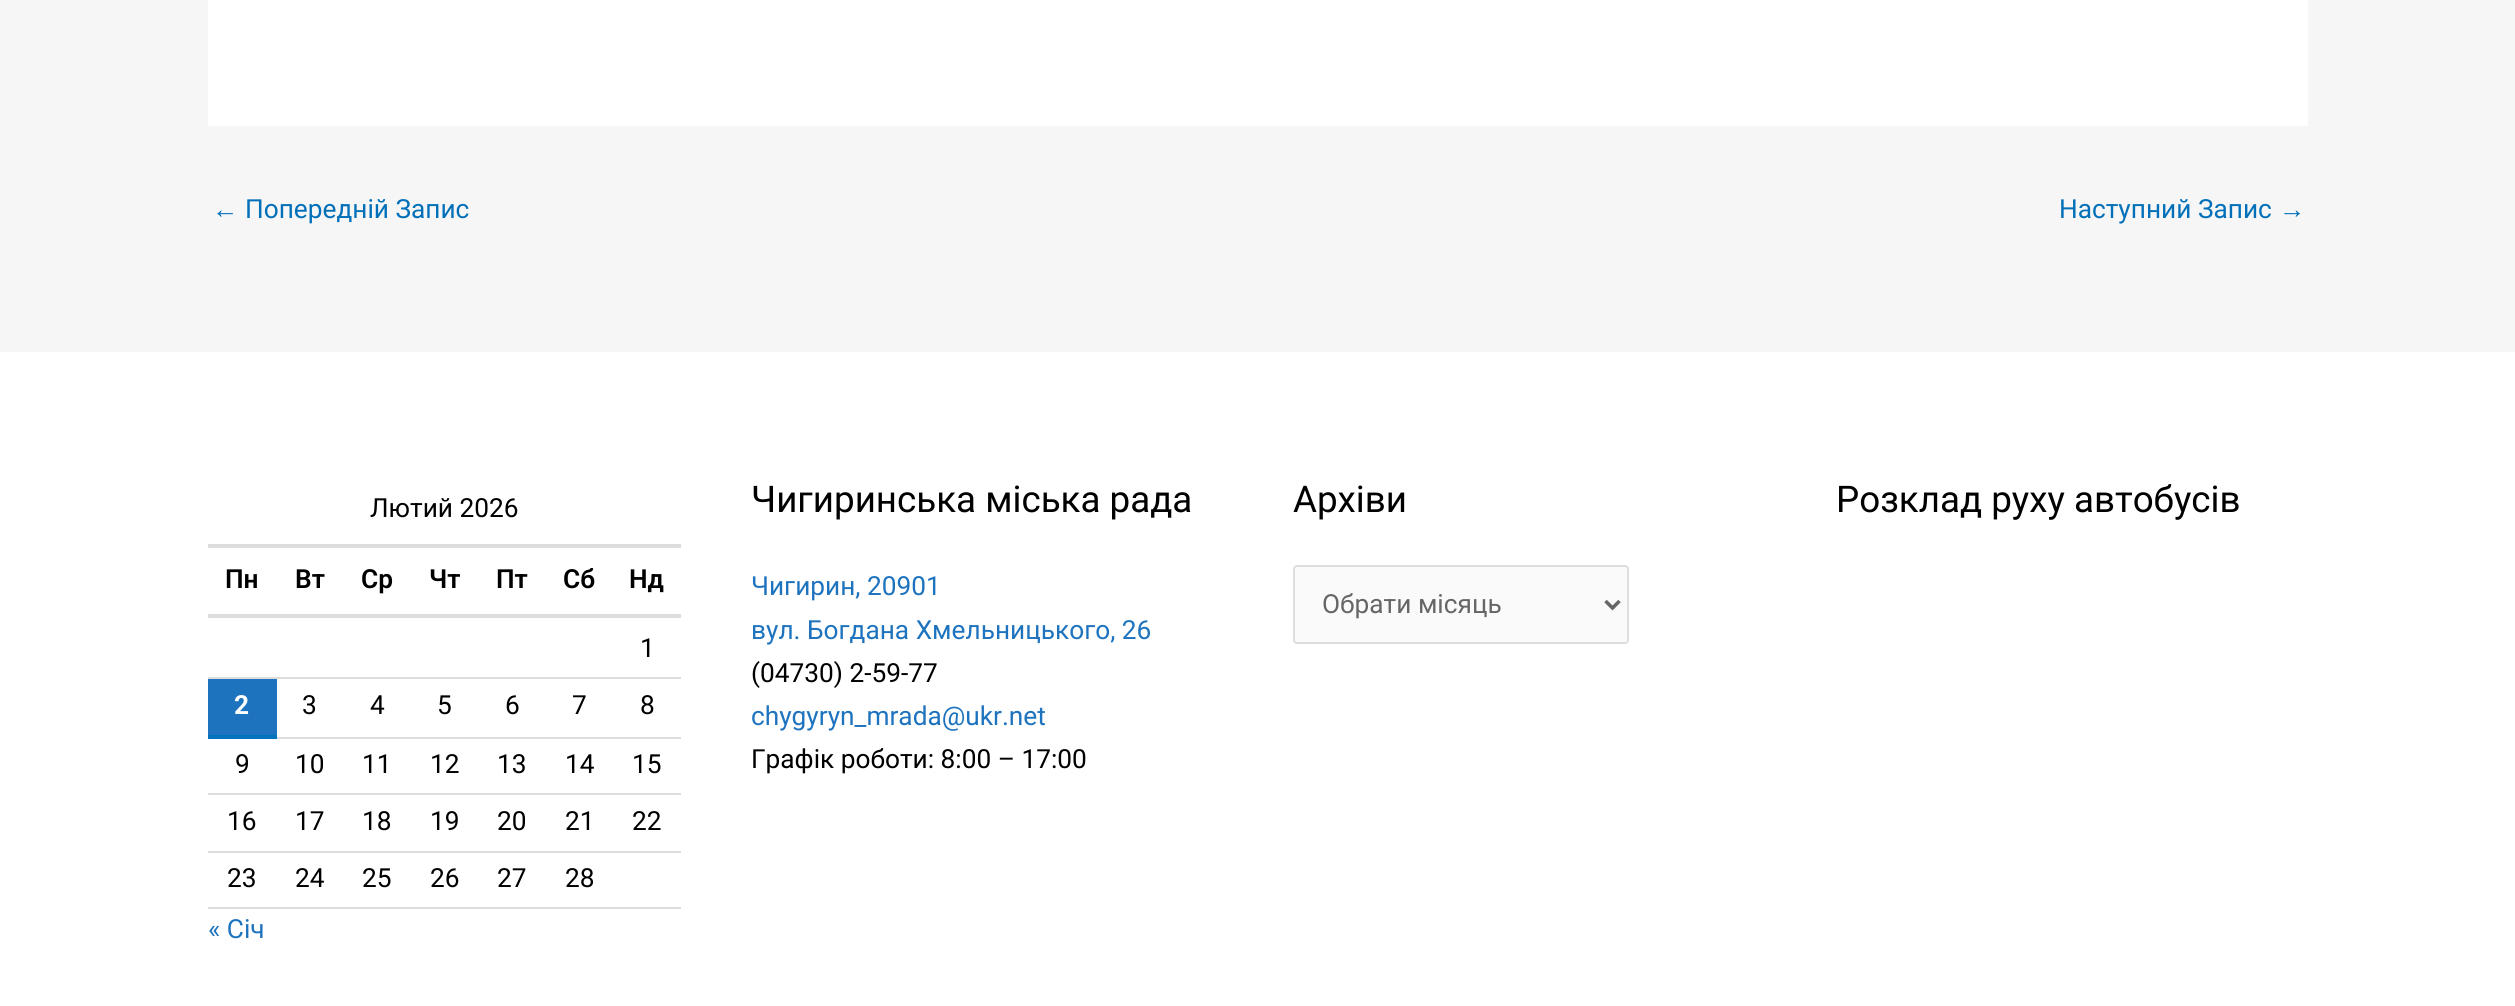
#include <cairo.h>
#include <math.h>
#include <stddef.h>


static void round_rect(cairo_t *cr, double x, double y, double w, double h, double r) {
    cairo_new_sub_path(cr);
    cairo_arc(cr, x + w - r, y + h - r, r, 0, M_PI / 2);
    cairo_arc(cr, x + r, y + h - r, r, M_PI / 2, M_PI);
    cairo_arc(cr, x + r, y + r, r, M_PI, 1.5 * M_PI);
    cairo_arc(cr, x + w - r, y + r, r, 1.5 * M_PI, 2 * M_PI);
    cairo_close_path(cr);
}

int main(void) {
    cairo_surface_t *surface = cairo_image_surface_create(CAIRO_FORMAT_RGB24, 2515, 1006);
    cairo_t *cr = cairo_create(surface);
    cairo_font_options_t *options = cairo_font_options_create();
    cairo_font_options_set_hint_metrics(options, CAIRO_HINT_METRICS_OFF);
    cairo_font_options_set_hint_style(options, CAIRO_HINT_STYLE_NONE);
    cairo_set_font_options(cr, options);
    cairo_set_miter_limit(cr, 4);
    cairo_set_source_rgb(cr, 0.961, 0.961, 0.961);
    cairo_paint(cr);
    cairo_set_source_rgb(cr, 1, 1, 1);
    cairo_rectangle(cr, 208, 0, 2100, 126);
    cairo_fill(cr);
    cairo_select_font_face(cr, "Liberation Sans", CAIRO_FONT_SLANT_NORMAL, CAIRO_FONT_WEIGHT_NORMAL);
    cairo_set_font_size(cr, 26.25);
    cairo_set_source_rgb(cr, 0.004, 0.439, 0.725);
    cairo_move_to(cr, 212, 218);
    cairo_show_text(cr, "←");
    cairo_select_font_face(cr, "Roboto", CAIRO_FONT_SLANT_NORMAL, CAIRO_FONT_WEIGHT_NORMAL);
    cairo_move_to(cr, 245, 218);
    cairo_show_text(cr, "Попередній Запис");
    cairo_move_to(cr, 2059, 218);
    cairo_show_text(cr, "Наступний Запис");
    cairo_select_font_face(cr, "Liberation Sans", CAIRO_FONT_SLANT_NORMAL, CAIRO_FONT_WEIGHT_NORMAL);
    cairo_move_to(cr, 2279, 218);
    cairo_show_text(cr, "→");
    cairo_set_source_rgb(cr, 1, 1, 1);
    cairo_rectangle(cr, 0, 352, 2515, 654);
    cairo_fill(cr);
    cairo_select_font_face(cr, "Roboto", CAIRO_FONT_SLANT_NORMAL, CAIRO_FONT_WEIGHT_NORMAL);
    cairo_set_source_rgb(cr, 0, 0, 0);
    cairo_move_to(cr, 370, 517);
    cairo_show_text(cr, "Лютий 2026");
    cairo_set_source_rgb(cr, 0.867, 0.867, 0.867);
    cairo_rectangle(cr, 208, 544, 473, 4);
    cairo_fill(cr);
    cairo_rectangle(cr, 208, 614, 473, 4);
    cairo_fill(cr);
    cairo_select_font_face(cr, "Roboto SemiBold", CAIRO_FONT_SLANT_NORMAL, CAIRO_FONT_WEIGHT_NORMAL);
    cairo_set_source_rgb(cr, 0, 0, 0);
    cairo_move_to(cr, 225, 588);
    cairo_show_text(cr, "Пн");
    cairo_move_to(cr, 295, 588);
    cairo_show_text(cr, "Вт");
    cairo_move_to(cr, 361, 588);
    cairo_show_text(cr, "Ср");
    cairo_move_to(cr, 429, 588);
    cairo_show_text(cr, "Чт");
    cairo_move_to(cr, 496, 588);
    cairo_show_text(cr, "Пт");
    cairo_move_to(cr, 563, 588);
    cairo_show_text(cr, "Сб");
    cairo_move_to(cr, 629, 588);
    cairo_show_text(cr, "Нд");
    cairo_select_font_face(cr, "Roboto", CAIRO_FONT_SLANT_NORMAL, CAIRO_FONT_WEIGHT_NORMAL);
    cairo_move_to(cr, 640, 657);
    cairo_show_text(cr, "1");
    cairo_set_source_rgb(cr, 0.867, 0.867, 0.867);
    cairo_rectangle(cr, 208, 677, 473, 2);
    cairo_fill(cr);
    cairo_set_source_rgb(cr, 0.118, 0.451, 0.745);
    cairo_rectangle(cr, 208, 679, 69, 56);
    cairo_fill(cr);
    cairo_set_source_rgb(cr, 0.008, 0.455, 0.745);
    cairo_rectangle(cr, 208, 735, 69, 4);
    cairo_fill(cr);
    cairo_select_font_face(cr, "Roboto", CAIRO_FONT_SLANT_NORMAL, CAIRO_FONT_WEIGHT_BOLD);
    cairo_set_source_rgb(cr, 1, 1, 1);
    cairo_move_to(cr, 234, 714);
    cairo_show_text(cr, "2");
    cairo_set_source_rgb(cr, 0.867, 0.867, 0.867);
    cairo_rectangle(cr, 277, 737, 404, 2);
    cairo_fill(cr);
    cairo_select_font_face(cr, "Roboto", CAIRO_FONT_SLANT_NORMAL, CAIRO_FONT_WEIGHT_NORMAL);
    cairo_set_source_rgb(cr, 0, 0, 0);
    cairo_move_to(cr, 302, 714);
    cairo_show_text(cr, "3");
    cairo_move_to(cr, 370, 714);
    cairo_show_text(cr, "4");
    cairo_move_to(cr, 437, 714);
    cairo_show_text(cr, "5");
    cairo_move_to(cr, 505, 714);
    cairo_show_text(cr, "6");
    cairo_move_to(cr, 572, 714);
    cairo_show_text(cr, "7");
    cairo_move_to(cr, 640, 714);
    cairo_show_text(cr, "8");
    cairo_set_source_rgb(cr, 0.867, 0.867, 0.867);
    cairo_rectangle(cr, 208, 793, 473, 2);
    cairo_fill(cr);
    cairo_set_source_rgb(cr, 0, 0, 0);
    cairo_move_to(cr, 235, 773);
    cairo_show_text(cr, "9");
    cairo_move_to(cr, 295, 773);
    cairo_show_text(cr, "10");
    cairo_move_to(cr, 362, 773);
    cairo_show_text(cr, "11");
    cairo_move_to(cr, 430, 773);
    cairo_show_text(cr, "12");
    cairo_move_to(cr, 497, 773);
    cairo_show_text(cr, "13");
    cairo_move_to(cr, 565, 773);
    cairo_show_text(cr, "14");
    cairo_move_to(cr, 632, 773);
    cairo_show_text(cr, "15");
    cairo_set_source_rgb(cr, 0.867, 0.867, 0.867);
    cairo_rectangle(cr, 208, 851, 473, 2);
    cairo_fill(cr);
    cairo_set_source_rgb(cr, 0, 0, 0);
    cairo_move_to(cr, 227, 830);
    cairo_show_text(cr, "16");
    cairo_move_to(cr, 295, 830);
    cairo_show_text(cr, "17");
    cairo_move_to(cr, 362, 830);
    cairo_show_text(cr, "18");
    cairo_move_to(cr, 430, 830);
    cairo_show_text(cr, "19");
    cairo_move_to(cr, 497, 830);
    cairo_show_text(cr, "20");
    cairo_move_to(cr, 565, 830);
    cairo_show_text(cr, "21");
    cairo_move_to(cr, 632, 830);
    cairo_show_text(cr, "22");
    cairo_set_source_rgb(cr, 0.867, 0.867, 0.867);
    cairo_rectangle(cr, 208, 907, 473, 2);
    cairo_fill(cr);
    cairo_set_source_rgb(cr, 0, 0, 0);
    cairo_move_to(cr, 227, 887);
    cairo_show_text(cr, "23");
    cairo_move_to(cr, 295, 887);
    cairo_show_text(cr, "24");
    cairo_move_to(cr, 362, 887);
    cairo_show_text(cr, "25");
    cairo_move_to(cr, 430, 887);
    cairo_show_text(cr, "26");
    cairo_move_to(cr, 497, 887);
    cairo_show_text(cr, "27");
    cairo_move_to(cr, 565, 887);
    cairo_show_text(cr, "28");
    cairo_set_source_rgb(cr, 0.118, 0.451, 0.745);
    cairo_move_to(cr, 208, 938);
    cairo_show_text(cr, "« Січ");
    cairo_set_font_size(cr, 36.75);
    cairo_set_source_rgb(cr, 0, 0, 0);
    cairo_move_to(cr, 751, 512);
    cairo_show_text(cr, "Чигиринська міська рада");
    cairo_set_font_size(cr, 26.25);
    cairo_set_source_rgb(cr, 0.118, 0.451, 0.745);
    cairo_move_to(cr, 751, 595);
    cairo_show_text(cr, "Чигирин, 20901");
    cairo_move_to(cr, 751, 639);
    cairo_show_text(cr, "вул. Богдана Хмельницького, 26");
    cairo_set_source_rgb(cr, 0, 0, 0);
    cairo_move_to(cr, 751, 682);
    cairo_show_text(cr, "(04730) 2-59-77");
    cairo_set_source_rgb(cr, 0.118, 0.451, 0.745);
    cairo_move_to(cr, 751, 725);
    cairo_show_text(cr, "chygyryn_mrada@ukr.net");
    cairo_set_source_rgb(cr, 0, 0, 0);
    cairo_move_to(cr, 751, 768);
    cairo_show_text(cr, "Графік роботи: 8:00 – 17:00");
    cairo_set_font_size(cr, 36.75);
    cairo_move_to(cr, 1293, 512);
    cairo_show_text(cr, "Архіви");
    cairo_set_source_rgb(cr, 0.98, 0.98, 0.98);
    round_rect(cr, 1294, 566, 334, 77, 3);
    cairo_fill_preserve(cr);
    cairo_set_source_rgb(cr, 0.867, 0.867, 0.867);
    cairo_stroke(cr);
    cairo_new_path(cr);
    cairo_move_to(cr, 1605.5, 601);
    cairo_line_to(cr, 1612.5, 608);
    cairo_line_to(cr, 1619.5, 601);
    cairo_set_source_rgb(cr, 0.4, 0.4, 0.4);
    cairo_set_line_width(cr, 3.5);
    cairo_stroke(cr);
    cairo_set_font_size(cr, 26.25);
    cairo_move_to(cr, 1322, 613);
    cairo_show_text(cr, "Обрати місяць");
    cairo_set_font_size(cr, 36.75);
    cairo_set_source_rgb(cr, 0, 0, 0);
    cairo_move_to(cr, 1836, 512);
    cairo_show_text(cr, "Розклад руху автобусів");
    cairo_surface_write_to_png(surface, "page.png");
    cairo_font_options_destroy(options);
    cairo_destroy(cr);
    cairo_surface_destroy(surface);
    return 0;
}
